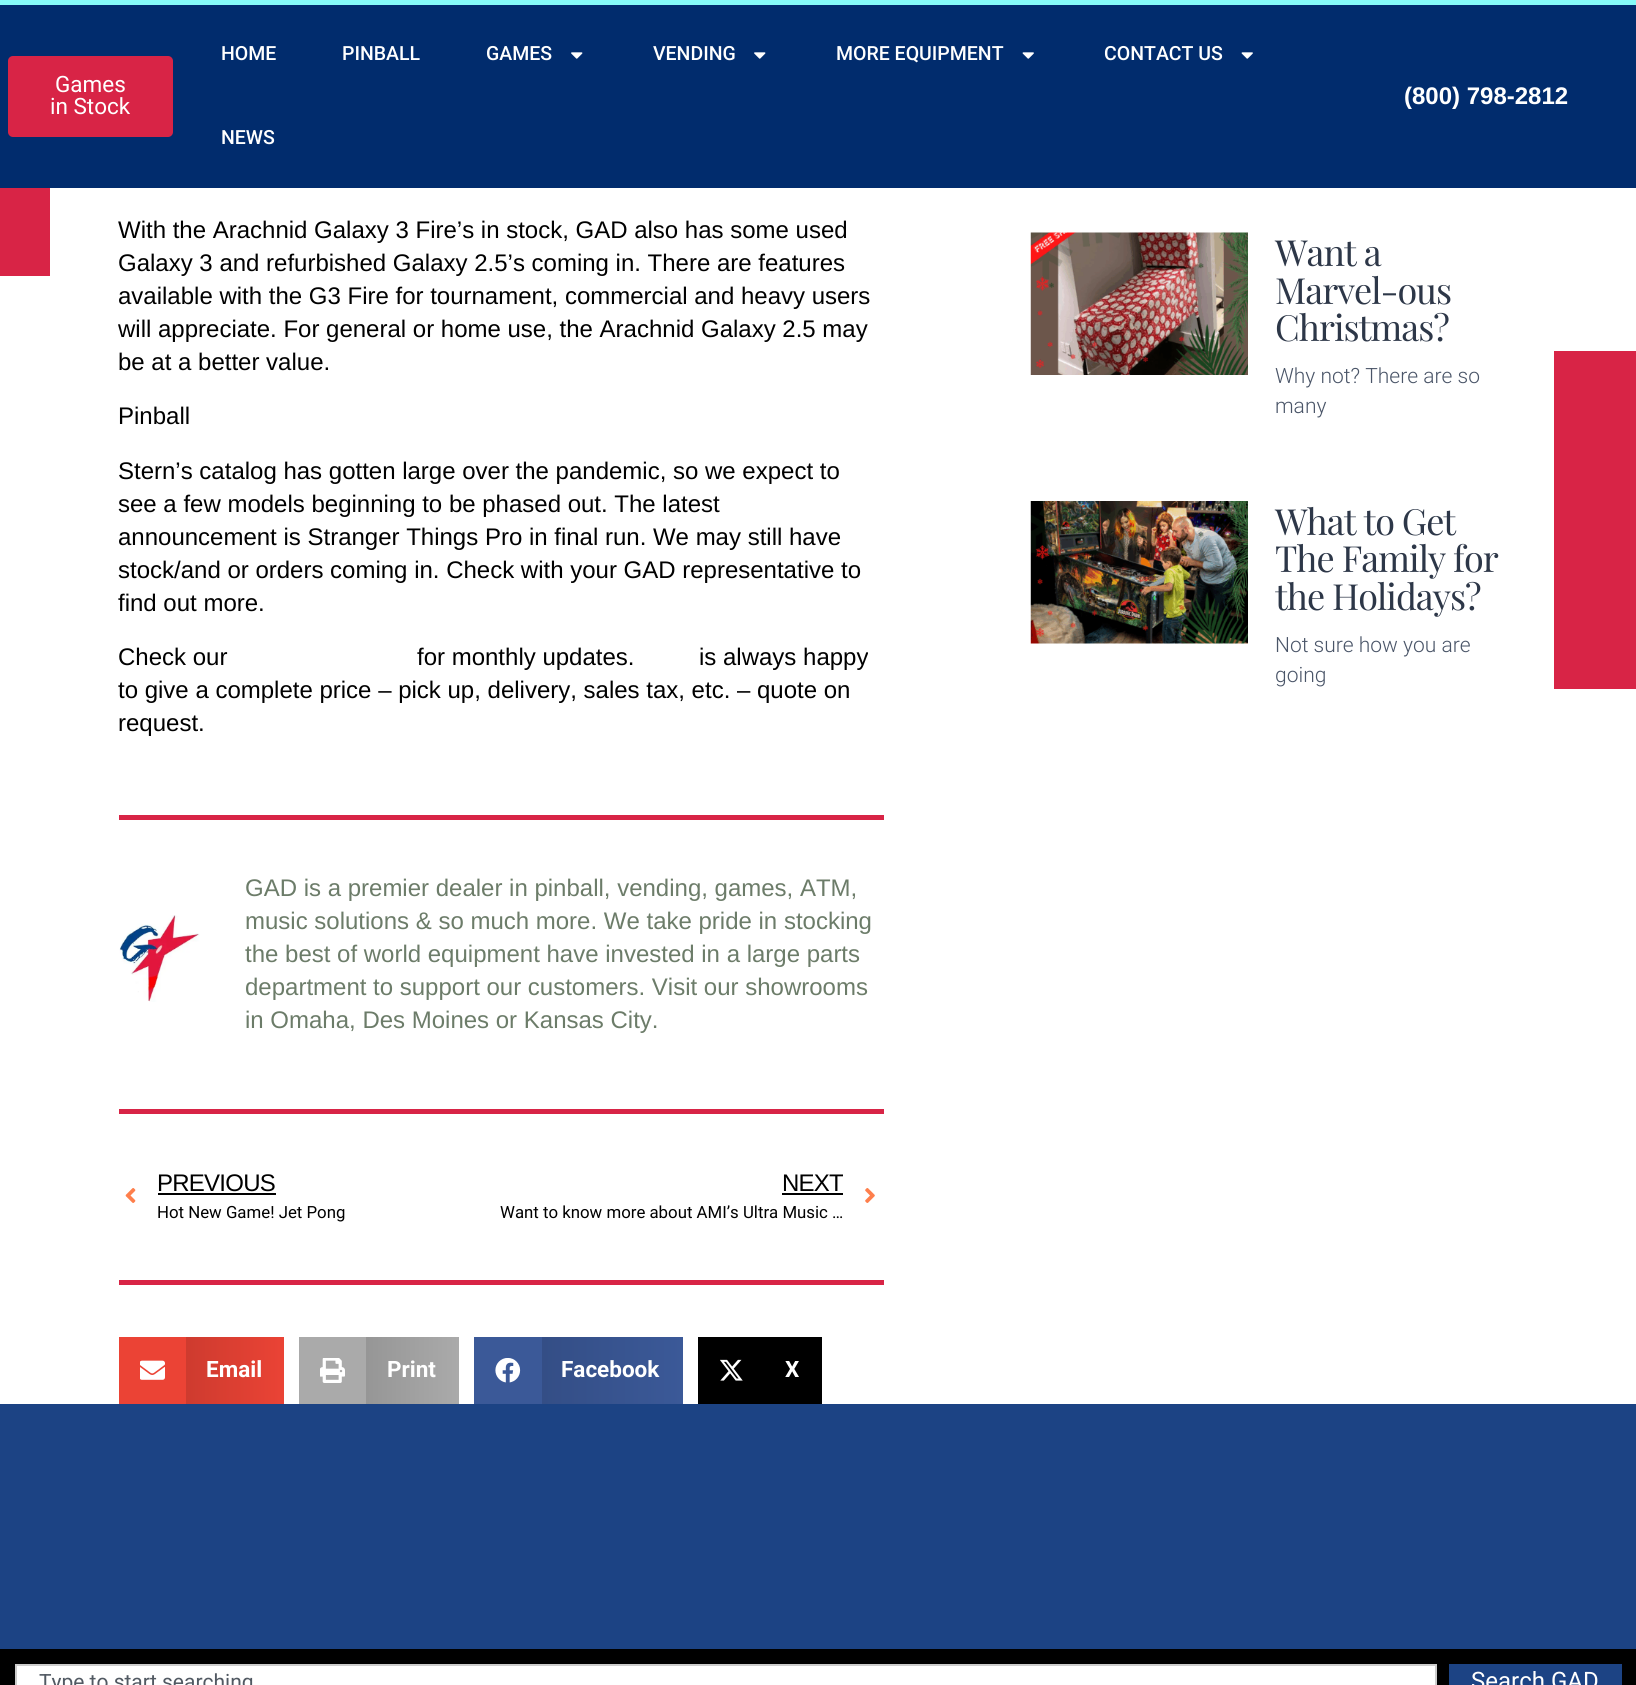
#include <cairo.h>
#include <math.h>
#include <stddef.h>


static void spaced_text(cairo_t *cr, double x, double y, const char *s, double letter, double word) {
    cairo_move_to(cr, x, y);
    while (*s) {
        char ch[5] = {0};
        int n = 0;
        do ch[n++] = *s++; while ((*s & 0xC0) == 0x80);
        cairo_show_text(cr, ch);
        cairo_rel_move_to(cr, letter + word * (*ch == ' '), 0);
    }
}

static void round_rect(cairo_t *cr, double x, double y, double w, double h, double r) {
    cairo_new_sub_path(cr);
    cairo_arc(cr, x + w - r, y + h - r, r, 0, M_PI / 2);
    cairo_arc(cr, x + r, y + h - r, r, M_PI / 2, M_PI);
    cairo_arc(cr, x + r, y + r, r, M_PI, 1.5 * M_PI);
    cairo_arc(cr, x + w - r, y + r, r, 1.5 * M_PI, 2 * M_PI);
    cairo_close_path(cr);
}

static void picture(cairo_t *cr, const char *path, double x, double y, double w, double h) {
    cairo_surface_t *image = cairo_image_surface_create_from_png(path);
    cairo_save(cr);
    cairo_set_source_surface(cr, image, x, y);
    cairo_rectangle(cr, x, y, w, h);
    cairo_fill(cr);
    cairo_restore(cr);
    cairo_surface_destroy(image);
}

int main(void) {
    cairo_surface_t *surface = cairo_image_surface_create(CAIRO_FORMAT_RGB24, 1636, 1685);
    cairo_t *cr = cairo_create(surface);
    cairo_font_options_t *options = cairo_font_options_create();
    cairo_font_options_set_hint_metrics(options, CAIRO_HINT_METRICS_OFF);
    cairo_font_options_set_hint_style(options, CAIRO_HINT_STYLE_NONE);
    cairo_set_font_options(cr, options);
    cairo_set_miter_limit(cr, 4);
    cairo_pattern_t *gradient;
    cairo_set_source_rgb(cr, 0.11, 0.263, 0.518);
    cairo_paint(cr);
    cairo_set_source_rgb(cr, 0.004, 0.173, 0.427);
    cairo_rectangle(cr, 0, 5, 1636, 183);
    cairo_fill(cr);
    cairo_set_source_rgb(cr, 0.525, 0.984, 0.969);
    cairo_rectangle(cr, 0, 0, 1636, 5);
    cairo_fill(cr);
    cairo_set_source_rgb(cr, 0.847, 0.141, 0.275);
    round_rect(cr, 8, 56, 165, 81, 5);
    cairo_fill(cr);
    cairo_select_font_face(cr, "Roboto", CAIRO_FONT_SLANT_NORMAL, CAIRO_FONT_WEIGHT_NORMAL);
    cairo_set_font_size(cr, 22.5);
    cairo_set_source_rgb(cr, 1, 1, 1);
    cairo_move_to(cr, 55, 92);
    cairo_show_text(cr, "Games");
    cairo_move_to(cr, 50, 114);
    cairo_show_text(cr, "in Stock");
    cairo_select_font_face(cr, "Roboto Medium", CAIRO_FONT_SLANT_NORMAL, CAIRO_FONT_WEIGHT_NORMAL);
    cairo_set_font_size(cr, 19.5);
    cairo_move_to(cr, 221, 60);
    cairo_show_text(cr, "HOME");
    cairo_move_to(cr, 342, 60);
    cairo_show_text(cr, "PINBALL");
    cairo_move_to(cr, 486, 60);
    cairo_show_text(cr, "GAMES");
    picture(cr, "img1.png", 571, 52, 12, 7);
    cairo_move_to(cr, 653, 60);
    cairo_show_text(cr, "VENDING");
    picture(cr, "img1.png", 754, 52, 12, 7);
    cairo_move_to(cr, 836, 60);
    cairo_show_text(cr, "MORE EQUIPMENT");
    picture(cr, "img2.png", 1022, 52, 12, 7);
    cairo_move_to(cr, 1104, 60);
    cairo_show_text(cr, "CONTACT US");
    picture(cr, "img2.png", 1241, 52, 12, 7);
    cairo_move_to(cr, 221, 144);
    cairo_show_text(cr, "NEWS");
    cairo_select_font_face(cr, "Arimo", CAIRO_FONT_SLANT_NORMAL, CAIRO_FONT_WEIGHT_BOLD);
    cairo_set_font_size(cr, 24);
    cairo_move_to(cr, 1404, 104);
    cairo_show_text(cr, "(800) 798-2812");
    cairo_rectangle(cr, 0, 188, 1636, 1216);
    cairo_fill(cr);
    cairo_set_source_rgb(cr, 0.847, 0.141, 0.275);
    cairo_rectangle(cr, 0, 188, 50, 88);
    cairo_fill(cr);
    cairo_select_font_face(cr, "Liberation Sans", CAIRO_FONT_SLANT_NORMAL, CAIRO_FONT_WEIGHT_NORMAL);
    cairo_set_source_rgb(cr, 0, 0, 0);
    cairo_move_to(cr, 118, 238);
    cairo_show_text(cr, "With the Arachnid Galaxy 3 Fire’s in stock, GAD also has some used");
    cairo_move_to(cr, 118, 271);
    cairo_show_text(cr, "Galaxy 3 and refurbished Galaxy 2.5’s coming in. There are features");
    cairo_move_to(cr, 118, 304);
    cairo_show_text(cr, "available with the G3 Fire for tournament, commercial and heavy users");
    cairo_move_to(cr, 118, 337);
    cairo_show_text(cr, "will appreciate. For general or home use, the Arachnid Galaxy 2.5 may");
    cairo_move_to(cr, 118, 370);
    cairo_show_text(cr, "be at a better value.");
    cairo_move_to(cr, 118, 424);
    cairo_show_text(cr, "Pinball");
    cairo_move_to(cr, 118, 479);
    cairo_show_text(cr, "Stern’s catalog has gotten large over the pandemic, so we expect to");
    cairo_move_to(cr, 118, 512);
    cairo_show_text(cr, "see a few models beginning to be phased out. The latest");
    cairo_move_to(cr, 118, 545);
    cairo_show_text(cr, "announcement is Stranger Things Pro in final run. We may still have");
    cairo_move_to(cr, 118, 578);
    cairo_show_text(cr, "stock/and or orders coming in. Check with your GAD representative to");
    cairo_move_to(cr, 118, 611);
    cairo_show_text(cr, "find out more.");
    cairo_move_to(cr, 118, 665);
    cairo_show_text(cr, "Check our");
    cairo_move_to(cr, 417, 665);
    cairo_show_text(cr, "for monthly updates.");
    cairo_move_to(cr, 699, 665);
    cairo_show_text(cr, "is always happy");
    cairo_move_to(cr, 118, 698);
    cairo_show_text(cr, "to give a complete price – pick up, delivery, sales tax, etc. – quote on");
    cairo_move_to(cr, 118, 731);
    cairo_show_text(cr, "request.");
    cairo_set_source_rgb(cr, 0.847, 0.141, 0.275);
    cairo_rectangle(cr, 119, 815, 765, 5);
    cairo_fill(cr);
    picture(cr, "img3.png", 119, 915, 81, 87);
    cairo_set_source_rgb(cr, 0.424, 0.486, 0.412);
    cairo_move_to(cr, 245, 896);
    cairo_show_text(cr, "GAD is a premier dealer in pinball, vending, games, ATM,");
    cairo_move_to(cr, 245, 929);
    cairo_show_text(cr, "music solutions & so much more. We take pride in stocking");
    cairo_move_to(cr, 245, 962);
    cairo_show_text(cr, "the best of world equipment have invested in a large parts");
    cairo_move_to(cr, 245, 995);
    cairo_show_text(cr, "department to support our customers. Visit our showrooms");
    cairo_move_to(cr, 245, 1028);
    cairo_show_text(cr, "in Omaha, Des Moines or Kansas City.");
    cairo_set_source_rgb(cr, 0.847, 0.141, 0.275);
    cairo_rectangle(cr, 119, 1109, 765, 5);
    cairo_fill(cr);
    picture(cr, "img4.png", 125, 1188, 11, 15);
    cairo_set_source_rgb(cr, 0, 0, 0);
    spaced_text(cr, 157, 1191, "PREVIOUS", -0.75, 0);
    cairo_rectangle(cr, 158, 1193, 118, 2);
    cairo_fill(cr);
    cairo_select_font_face(cr, "Roboto", CAIRO_FONT_SLANT_NORMAL, CAIRO_FONT_WEIGHT_NORMAL);
    cairo_set_font_size(cr, 16.8);
    cairo_move_to(cr, 157, 1218);
    cairo_show_text(cr, "Hot New Game! Jet Pong");
    cairo_save(cr);
    cairo_rectangle(cr, 500, 1166, 343, 36);
    cairo_clip(cr);
    cairo_select_font_face(cr, "Liberation Sans", CAIRO_FONT_SLANT_NORMAL, CAIRO_FONT_WEIGHT_NORMAL);
    cairo_set_font_size(cr, 24);
    spaced_text(cr, 782, 1191, "NEXT", -0.75, 0);
    cairo_restore(cr);
    cairo_rectangle(cr, 782, 1193, 61, 2);
    cairo_fill(cr);
    cairo_move_to(cr, 500, 1218);
    cairo_show_text(cr, "Want to know more about AMI’s Ultra Music …");
    picture(cr, "img5.png", 865, 1188, 10, 15);
    cairo_set_source_rgb(cr, 0.847, 0.141, 0.275);
    cairo_rectangle(cr, 119, 1280, 765, 5);
    cairo_fill(cr);
    cairo_set_source_rgb(cr, 0.918, 0.263, 0.208);
    cairo_rectangle(cr, 119, 1337, 67, 67);
    cairo_fill(cr);
    picture(cr, "img6.png", 140, 1360, 25, 20);
    gradient = cairo_pattern_create_linear(186, 1370, 284, 1370);
    cairo_pattern_add_color_stop_rgba(gradient, 0, 0.808, 0.231, 0.184, 1);
    cairo_pattern_add_color_stop_rgba(gradient, 1, 0.918, 0.263, 0.208, 1);
    cairo_set_source(cr, gradient);
    cairo_pattern_destroy(gradient);
    cairo_rectangle(cr, 186, 1337, 98, 67);
    cairo_fill(cr);
    cairo_select_font_face(cr, "Roboto", CAIRO_FONT_SLANT_NORMAL, CAIRO_FONT_WEIGHT_BOLD);
    cairo_set_font_size(cr, 22.5);
    cairo_set_source_rgb(cr, 1, 1, 1);
    cairo_move_to(cr, 206, 1377);
    cairo_show_text(cr, "Email");
    cairo_set_source_rgb(cr, 0.667, 0.667, 0.667);
    cairo_rectangle(cr, 299, 1337, 67, 67);
    cairo_fill(cr);
    picture(cr, "img7.png", 320, 1358, 25, 25);
    gradient = cairo_pattern_create_linear(366, 1370, 459, 1370);
    cairo_pattern_add_color_stop_rgba(gradient, 0, 0.588, 0.588, 0.588, 1);
    cairo_pattern_add_color_stop_rgba(gradient, 1, 0.667, 0.667, 0.667, 1);
    cairo_set_source(cr, gradient);
    cairo_pattern_destroy(gradient);
    cairo_rectangle(cr, 366, 1337, 93, 67);
    cairo_fill(cr);
    cairo_set_source_rgb(cr, 1, 1, 1);
    cairo_move_to(cr, 387, 1377);
    cairo_show_text(cr, "Print");
    cairo_set_source_rgb(cr, 0.231, 0.349, 0.596);
    cairo_rectangle(cr, 474, 1337, 68, 67);
    cairo_fill(cr);
    picture(cr, "img8.png", 495, 1358, 26, 25);
    gradient = cairo_pattern_create_linear(542, 1370, 683, 1370);
    cairo_pattern_add_color_stop_rgba(gradient, 0, 0.204, 0.306, 0.525, 1);
    cairo_pattern_add_color_stop_rgba(gradient, 1, 0.231, 0.349, 0.596, 1);
    cairo_set_source(cr, gradient);
    cairo_pattern_destroy(gradient);
    cairo_rectangle(cr, 542, 1337, 141, 67);
    cairo_fill(cr);
    cairo_set_source_rgb(cr, 1, 1, 1);
    cairo_move_to(cr, 561, 1377);
    cairo_show_text(cr, "Facebook");
    cairo_set_source_rgb(cr, 0, 0, 0);
    cairo_rectangle(cr, 698, 1337, 124, 67);
    cairo_fill(cr);
    picture(cr, "img9.png", 720, 1359, 23, 22);
    cairo_set_source_rgb(cr, 1, 1, 1);
    cairo_move_to(cr, 785, 1377);
    cairo_show_text(cr, "X");
    picture(cr, "img10.png", 1030, 232, 218, 143);
    cairo_select_font_face(cr, "Playfair Display", CAIRO_FONT_SLANT_NORMAL, CAIRO_FONT_WEIGHT_NORMAL);
    cairo_set_font_size(cr, 36);
    cairo_set_source_rgb(cr, 0.176, 0.216, 0.282);
    spaced_text(cr, 1275, 266, "Want a", -1, 0);
    spaced_text(cr, 1275, 304, "Marvel-ous", -1, 0);
    spaced_text(cr, 1275, 341, "Christmas?", -1, 0);
    cairo_select_font_face(cr, "Roboto Light", CAIRO_FONT_SLANT_NORMAL, CAIRO_FONT_WEIGHT_NORMAL);
    cairo_set_font_size(cr, 21);
    cairo_set_source_rgb(cr, 0.29, 0.333, 0.408);
    cairo_move_to(cr, 1275, 383);
    cairo_show_text(cr, "Why not? There are so");
    cairo_move_to(cr, 1275, 413);
    cairo_show_text(cr, "many");
    picture(cr, "img11.png", 1030, 501, 218, 143);
    cairo_select_font_face(cr, "Playfair Display", CAIRO_FONT_SLANT_NORMAL, CAIRO_FONT_WEIGHT_NORMAL);
    cairo_set_font_size(cr, 36);
    cairo_set_source_rgb(cr, 0.176, 0.216, 0.282);
    spaced_text(cr, 1275, 535, "What to Get", -1, 0);
    spaced_text(cr, 1275, 572, "The Family for", -1, 0);
    spaced_text(cr, 1275, 610, "the Holidays?", -1, 0);
    cairo_select_font_face(cr, "Roboto Light", CAIRO_FONT_SLANT_NORMAL, CAIRO_FONT_WEIGHT_NORMAL);
    cairo_set_font_size(cr, 21);
    cairo_set_source_rgb(cr, 0.29, 0.333, 0.408);
    cairo_move_to(cr, 1275, 652);
    cairo_show_text(cr, "Not sure how you are");
    cairo_move_to(cr, 1275, 682);
    cairo_show_text(cr, "going");
    cairo_set_source_rgb(cr, 0.847, 0.141, 0.275);
    cairo_rectangle(cr, 1554, 351, 82, 338);
    cairo_fill(cr);
    cairo_set_source_rgb(cr, 0, 0, 0);
    cairo_rectangle(cr, 0, 1649, 1636, 36);
    cairo_fill(cr);
    cairo_set_source_rgb(cr, 1, 1, 1);
    cairo_rectangle(cr, 16, 1665, 1420, 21);
    cairo_fill_preserve(cr);
    cairo_set_source_rgb(cr, 0.804, 0.804, 0.804);
    cairo_stroke(cr);
    cairo_select_font_face(cr, "Roboto", CAIRO_FONT_SLANT_NORMAL, CAIRO_FONT_WEIGHT_NORMAL);
    cairo_set_source_rgb(cr, 0.318, 0.349, 0.384);
    cairo_move_to(cr, 39, 1689);
    cairo_show_text(cr, "Type to start searching");
    cairo_set_source_rgb(cr, 0.11, 0.263, 0.518);
    cairo_rectangle(cr, 1449, 1664, 173, 21);
    cairo_fill(cr);
    cairo_set_font_size(cr, 24);
    cairo_set_source_rgb(cr, 1, 1, 1);
    cairo_move_to(cr, 1471, 1689);
    cairo_show_text(cr, "Search GAD");
    cairo_surface_write_to_png(surface, "page.png");
    cairo_font_options_destroy(options);
    cairo_destroy(cr);
    cairo_surface_destroy(surface);
    return 0;
}
